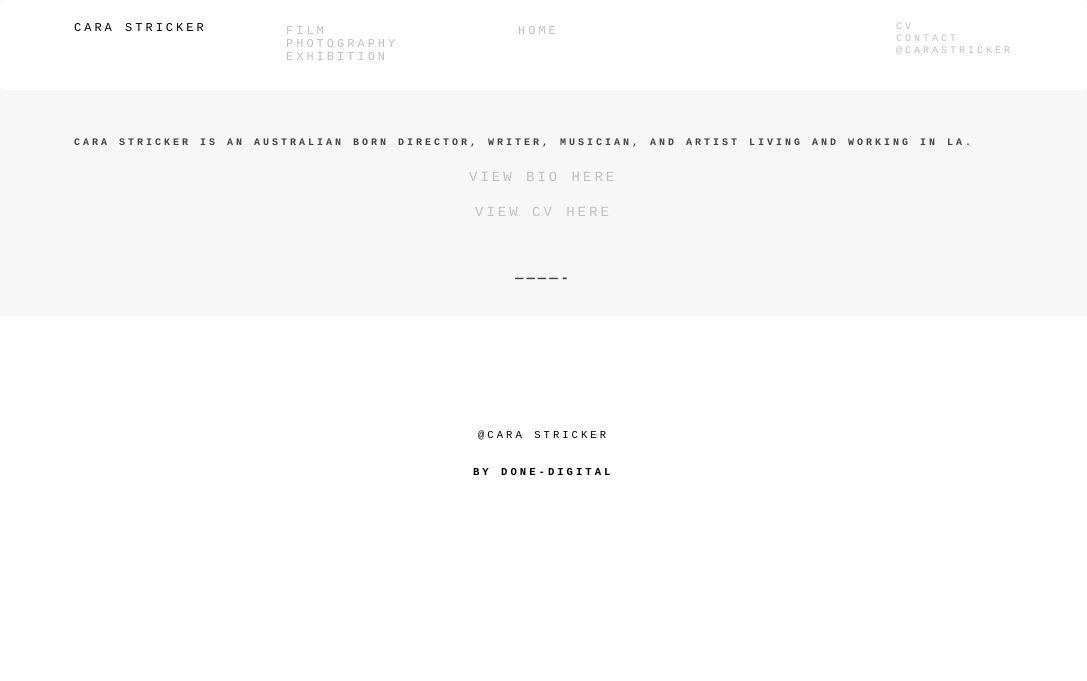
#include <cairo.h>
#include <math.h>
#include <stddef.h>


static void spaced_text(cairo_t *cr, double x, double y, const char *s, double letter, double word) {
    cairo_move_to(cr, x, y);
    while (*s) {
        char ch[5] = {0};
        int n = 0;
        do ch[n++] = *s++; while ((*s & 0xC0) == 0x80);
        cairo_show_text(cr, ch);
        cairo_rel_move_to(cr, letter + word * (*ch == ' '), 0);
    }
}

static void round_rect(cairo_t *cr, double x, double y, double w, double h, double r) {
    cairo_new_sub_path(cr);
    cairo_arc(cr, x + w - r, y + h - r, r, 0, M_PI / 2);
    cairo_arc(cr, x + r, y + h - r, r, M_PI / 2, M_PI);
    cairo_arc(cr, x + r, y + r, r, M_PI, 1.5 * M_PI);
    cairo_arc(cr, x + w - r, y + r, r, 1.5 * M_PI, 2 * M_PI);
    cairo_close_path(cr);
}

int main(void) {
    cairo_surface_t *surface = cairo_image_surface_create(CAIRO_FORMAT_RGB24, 1087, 681);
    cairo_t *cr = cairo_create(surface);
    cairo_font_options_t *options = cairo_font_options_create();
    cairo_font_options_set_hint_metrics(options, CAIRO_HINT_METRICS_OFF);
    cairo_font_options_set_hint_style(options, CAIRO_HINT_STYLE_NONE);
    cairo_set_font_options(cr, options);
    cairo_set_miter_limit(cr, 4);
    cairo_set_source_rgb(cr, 1, 1, 1);
    cairo_paint(cr);
    cairo_set_source_rgb(cr, 0.965, 0.965, 0.965);
    cairo_rectangle(cr, 0, 0, 1087, 316);
    cairo_fill(cr);
    cairo_set_source_rgb(cr, 1, 1, 1);
    round_rect(cr, 0, 0, 1087, 90, 4);
    cairo_fill(cr);
    cairo_select_font_face(cr, "Liberation Mono", CAIRO_FONT_SLANT_NORMAL, CAIRO_FONT_WEIGHT_NORMAL);
    cairo_set_font_size(cr, 12);
    cairo_set_source_rgb(cr, 0, 0, 0);
    spaced_text(cr, 74, 31, "CARA STRICKER", 3, 0);
    cairo_set_source_rgb(cr, 0.753, 0.753, 0.753);
    spaced_text(cr, 286, 34, "FILM", 3, 0);
    spaced_text(cr, 286, 47, "PHOTOGRAPHY", 3, 0);
    spaced_text(cr, 286, 60, "EXHIBITION", 3, 0);
    spaced_text(cr, 518, 34, "HOME", 3, 0);
    cairo_set_font_size(cr, 10);
    spaced_text(cr, 896, 29, "CV", 3, 0);
    spaced_text(cr, 896, 41, "CONTACT", 3, 0);
    spaced_text(cr, 896, 53, "@CARASTRICKER", 3, 0);
    cairo_select_font_face(cr, "Liberation Mono", CAIRO_FONT_SLANT_NORMAL, CAIRO_FONT_WEIGHT_BOLD);
    cairo_set_source_rgb(cr, 0.251, 0.251, 0.251);
    spaced_text(cr, 74, 145, "CARA STRICKER IS AN AUSTRALIAN BORN DIRECTOR, WRITER, MUSICIAN, AND ARTIST LIVING AND WORKING IN LA.", 3, 0);
    cairo_select_font_face(cr, "Liberation Mono", CAIRO_FONT_SLANT_NORMAL, CAIRO_FONT_WEIGHT_NORMAL);
    cairo_set_font_size(cr, 14);
    cairo_set_source_rgb(cr, 0.753, 0.753, 0.753);
    spaced_text(cr, 469, 181, "VIEW BIO HERE", 3, 0);
    spaced_text(cr, 475, 216, "VIEW CV HERE", 3, 0);
    cairo_select_font_face(cr, "Liberation Mono", CAIRO_FONT_SLANT_NORMAL, CAIRO_FONT_WEIGHT_BOLD);
    cairo_set_source_rgb(cr, 0.251, 0.251, 0.251);
    spaced_text(cr, 515, 282, "————-", 3, 0);
    cairo_select_font_face(cr, "Liberation Mono", CAIRO_FONT_SLANT_NORMAL, CAIRO_FONT_WEIGHT_NORMAL);
    cairo_set_font_size(cr, 10.6);
    cairo_set_source_rgb(cr, 0, 0, 0);
    spaced_text(cr, 478, 438, "@CARA STRICKER", 3, 0);
    cairo_select_font_face(cr, "Liberation Mono", CAIRO_FONT_SLANT_NORMAL, CAIRO_FONT_WEIGHT_BOLD);
    spaced_text(cr, 473, 475, "BY DONE-DIGITAL", 3, 0);
    cairo_surface_write_to_png(surface, "page.png");
    cairo_font_options_destroy(options);
    cairo_destroy(cr);
    cairo_surface_destroy(surface);
    return 0;
}
